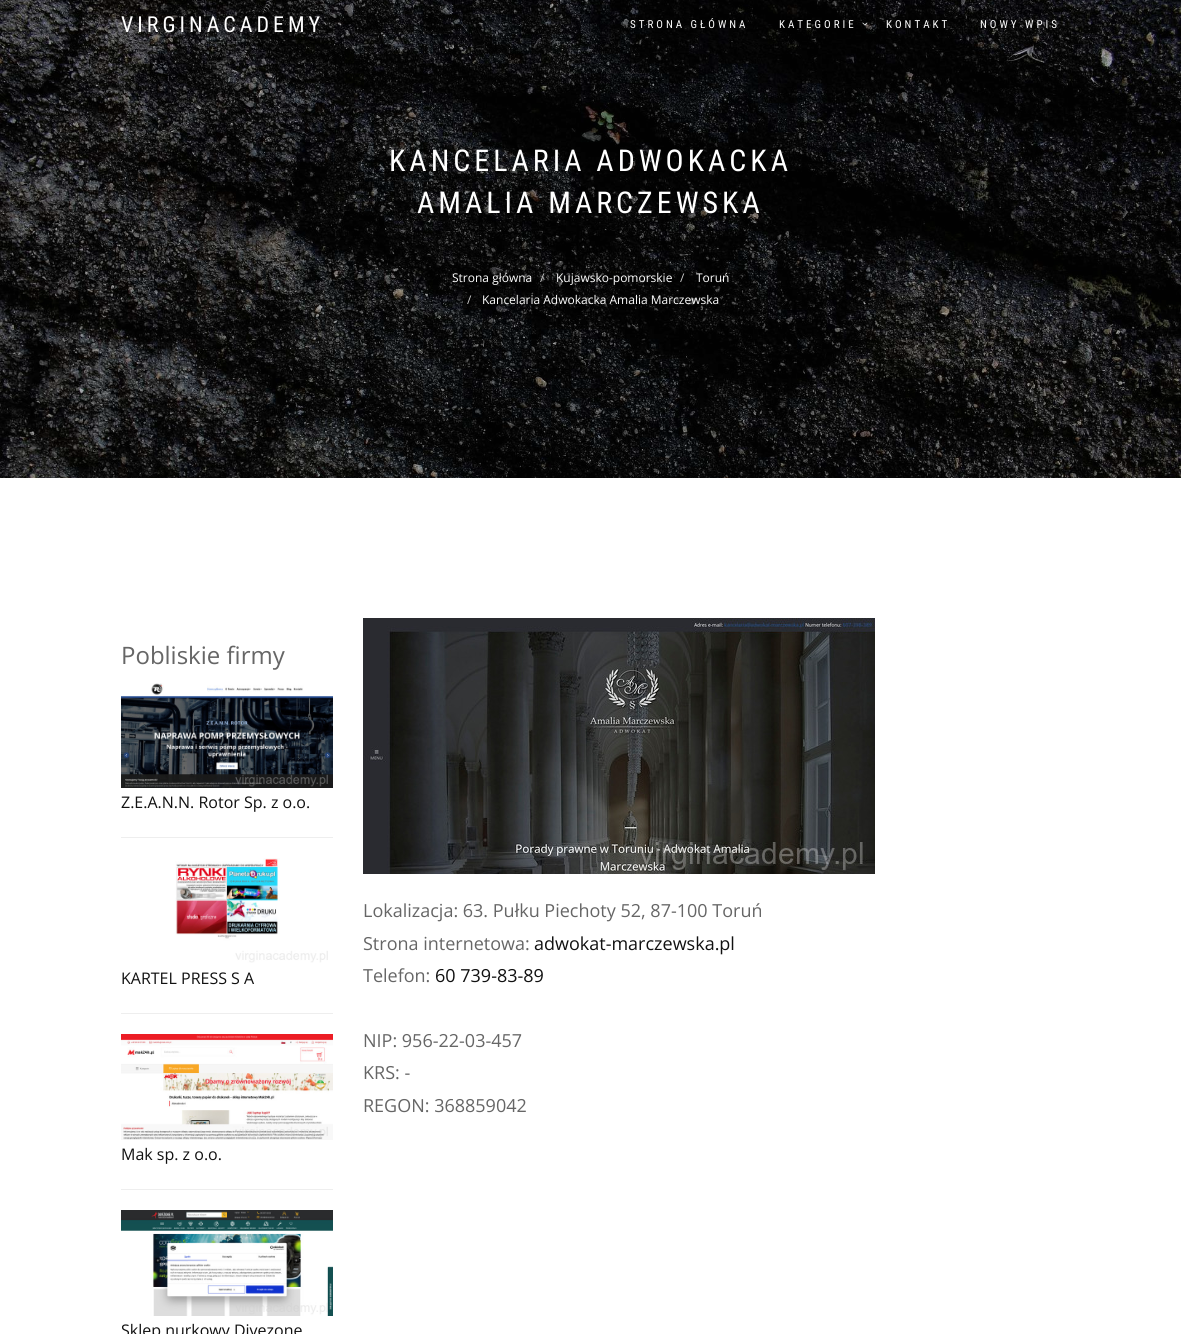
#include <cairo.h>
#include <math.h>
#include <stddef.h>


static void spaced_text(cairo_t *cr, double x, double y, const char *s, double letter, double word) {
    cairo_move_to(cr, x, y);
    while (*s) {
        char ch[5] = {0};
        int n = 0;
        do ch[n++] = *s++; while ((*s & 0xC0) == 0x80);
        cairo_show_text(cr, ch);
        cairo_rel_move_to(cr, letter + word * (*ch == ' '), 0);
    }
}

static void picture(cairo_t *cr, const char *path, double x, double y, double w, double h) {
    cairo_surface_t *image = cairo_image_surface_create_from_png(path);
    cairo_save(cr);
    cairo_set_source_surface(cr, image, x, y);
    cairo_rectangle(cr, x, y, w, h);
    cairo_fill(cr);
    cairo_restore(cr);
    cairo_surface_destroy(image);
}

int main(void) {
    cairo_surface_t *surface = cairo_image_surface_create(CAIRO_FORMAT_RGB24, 1181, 1334);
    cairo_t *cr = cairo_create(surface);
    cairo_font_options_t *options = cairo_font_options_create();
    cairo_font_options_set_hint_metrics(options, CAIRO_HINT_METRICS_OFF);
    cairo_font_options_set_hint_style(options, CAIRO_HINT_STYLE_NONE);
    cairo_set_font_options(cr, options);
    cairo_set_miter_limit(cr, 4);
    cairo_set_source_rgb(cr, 1, 1, 1);
    cairo_paint(cr);
    picture(cr, "img2.png", 0, 0, 1181, 478);
    cairo_select_font_face(cr, "Roboto Condensed", CAIRO_FONT_SLANT_NORMAL, CAIRO_FONT_WEIGHT_NORMAL);
    cairo_set_font_size(cr, 22);
    cairo_set_source_rgb(cr, 1, 1, 1);
    spaced_text(cr, 121, 32, "VIRGINACADEMY", 4, 0);
    cairo_set_font_size(cr, 11);
    spaced_text(cr, 630, 28, "STRONA GŁÓWNA", 3, 0);
    spaced_text(cr, 779, 28, "KATEGORIE", 3, 0);
    picture(cr, "img1.png", 862, 22, 6, 4);
    spaced_text(cr, 886, 28, "KONTAKT", 3, 0);
    spaced_text(cr, 980, 28, "NOWY WPIS", 3, 0);
    cairo_set_font_size(cr, 30);
    spaced_text(cr, 389, 171, "KANCELARIA ADWOKACKA", 4, 0);
    spaced_text(cr, 417, 213, "AMALIA MARCZEWSKA", 4, 0);
    cairo_select_font_face(cr, "Open Sans", CAIRO_FONT_SLANT_NORMAL, CAIRO_FONT_WEIGHT_NORMAL);
    cairo_set_font_size(cr, 12);
    cairo_move_to(cr, 452, 282);
    cairo_show_text(cr, "Strona główna");
    cairo_set_source_rgb(cr, 0.8, 0.8, 0.8);
    cairo_move_to(cr, 540, 282);
    cairo_show_text(cr, "/");
    cairo_set_source_rgb(cr, 1, 1, 1);
    cairo_move_to(cr, 556, 282);
    cairo_show_text(cr, "Kujawsko-pomorskie");
    cairo_set_source_rgb(cr, 0.8, 0.8, 0.8);
    cairo_move_to(cr, 680, 282);
    cairo_show_text(cr, "/");
    cairo_set_source_rgb(cr, 1, 1, 1);
    cairo_move_to(cr, 696, 282);
    cairo_show_text(cr, "Toruń");
    cairo_set_source_rgb(cr, 0.8, 0.8, 0.8);
    cairo_move_to(cr, 467, 304);
    cairo_show_text(cr, "/");
    cairo_set_source_rgb(cr, 1, 1, 1);
    cairo_move_to(cr, 482, 304);
    cairo_show_text(cr, "Kancelaria Adwokacka Amalia Marczewska");
    cairo_set_font_size(cr, 24);
    cairo_set_source_rgb(cr, 0.4, 0.4, 0.4);
    cairo_move_to(cr, 121, 664);
    cairo_show_text(cr, "Pobliskie firmy");
    picture(cr, "img3.png", 121, 683, 212, 105);
    cairo_set_font_size(cr, 16);
    cairo_set_source_rgb(cr, 0.067, 0.067, 0.067);
    cairo_move_to(cr, 121, 808);
    cairo_show_text(cr, "Z.E.A.N.N. Rotor Sp. z o.o.");
    cairo_set_source_rgb(cr, 0.933, 0.933, 0.933);
    cairo_rectangle(cr, 121, 837, 212, 1);
    cairo_fill(cr);
    picture(cr, "img4.png", 175, 858, 153, 105);
    cairo_set_source_rgb(cr, 0.067, 0.067, 0.067);
    cairo_move_to(cr, 121, 984);
    cairo_show_text(cr, "KARTEL PRESS S A");
    cairo_set_source_rgb(cr, 0.933, 0.933, 0.933);
    cairo_rectangle(cr, 121, 1013, 212, 1);
    cairo_fill(cr);
    picture(cr, "img5.png", 121, 1034, 212, 106);
    cairo_set_source_rgb(cr, 0.067, 0.067, 0.067);
    cairo_move_to(cr, 121, 1160);
    cairo_show_text(cr, "Mak sp. z o.o.");
    cairo_set_source_rgb(cr, 0.933, 0.933, 0.933);
    cairo_rectangle(cr, 121, 1189, 212, 1);
    cairo_fill(cr);
    picture(cr, "img6.png", 121, 1210, 212, 106);
    cairo_set_source_rgb(cr, 0.067, 0.067, 0.067);
    cairo_move_to(cr, 121, 1336);
    cairo_show_text(cr, "Sklep nurkowy Divezone");
    picture(cr, "img7.png", 363, 618, 512, 256);
    cairo_set_font_size(cr, 18);
    cairo_set_source_rgb(cr, 0.4, 0.4, 0.4);
    cairo_move_to(cr, 363, 917);
    cairo_show_text(cr, "Lokalizacja: 63. Pułku Piechoty 52, 87-100 Toruń");
    cairo_move_to(cr, 363, 950);
    cairo_show_text(cr, "Strona internetowa:");
    cairo_set_source_rgb(cr, 0.067, 0.067, 0.067);
    cairo_move_to(cr, 534, 950);
    cairo_show_text(cr, "adwokat-marczewska.pl");
    cairo_set_source_rgb(cr, 0.4, 0.4, 0.4);
    cairo_move_to(cr, 363, 982);
    cairo_show_text(cr, "Telefon:");
    cairo_set_source_rgb(cr, 0.067, 0.067, 0.067);
    cairo_move_to(cr, 435, 982);
    cairo_show_text(cr, "60 739-83-89");
    cairo_set_source_rgb(cr, 0.4, 0.4, 0.4);
    cairo_move_to(cr, 363, 1047);
    cairo_show_text(cr, "NIP: 956-22-03-457");
    cairo_move_to(cr, 363, 1079);
    cairo_show_text(cr, "KRS: -");
    cairo_move_to(cr, 363, 1112);
    cairo_show_text(cr, "REGON: 368859042");
    cairo_surface_write_to_png(surface, "page.png");
    cairo_font_options_destroy(options);
    cairo_destroy(cr);
    cairo_surface_destroy(surface);
    return 0;
}
